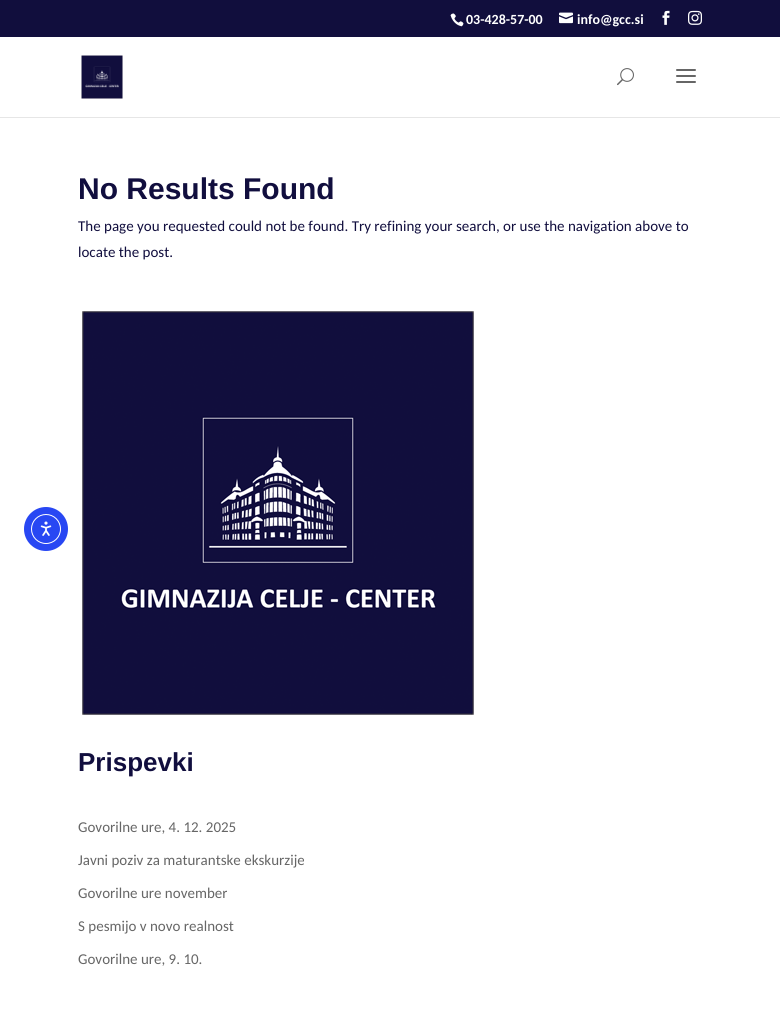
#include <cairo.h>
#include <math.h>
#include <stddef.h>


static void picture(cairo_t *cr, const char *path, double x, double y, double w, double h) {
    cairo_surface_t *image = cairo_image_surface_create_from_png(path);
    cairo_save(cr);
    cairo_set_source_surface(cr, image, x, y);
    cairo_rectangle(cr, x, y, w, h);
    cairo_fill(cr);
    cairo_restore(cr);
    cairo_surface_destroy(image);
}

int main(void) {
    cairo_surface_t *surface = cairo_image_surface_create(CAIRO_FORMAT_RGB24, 780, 1013);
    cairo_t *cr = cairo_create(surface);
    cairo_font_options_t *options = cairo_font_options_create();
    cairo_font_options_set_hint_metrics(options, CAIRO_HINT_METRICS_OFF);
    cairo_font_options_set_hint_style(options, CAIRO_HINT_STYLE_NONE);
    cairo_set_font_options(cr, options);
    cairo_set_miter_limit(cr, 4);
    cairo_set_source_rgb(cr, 0.067, 0.055, 0.239);
    cairo_paint(cr);
    cairo_set_source_rgb(cr, 1, 1, 1);
    cairo_rectangle(cr, 0, 118, 780, 895);
    cairo_fill(cr);
    cairo_set_source_rgb(cr, 0.157, 0.278, 0.953);
    cairo_arc(cr, 46, 529, 22, 0, 2 * M_PI);
    cairo_fill(cr);
    cairo_arc(cr, 46, 529, 14.5, 0, 2 * M_PI);
    cairo_set_source_rgb(cr, 1, 1, 1);
    cairo_set_line_width(cr, 1);
    cairo_stroke(cr);
    picture(cr, "img1.png", 40, 521, 12, 15);
    picture(cr, "img2.png", 450, 13, 14, 14);
    cairo_select_font_face(cr, "Carlito", CAIRO_FONT_SLANT_NORMAL, CAIRO_FONT_WEIGHT_BOLD);
    cairo_set_font_size(cr, 14);
    cairo_move_to(cr, 466, 24);
    cairo_show_text(cr, "03-428-57-00");
    picture(cr, "img3.png", 559, 12, 14, 12);
    cairo_move_to(cr, 577, 24);
    cairo_show_text(cr, "info@gcc.si");
    picture(cr, "img4.png", 662, 10, 8, 15);
    picture(cr, "img5.png", 688, 10, 14, 15);
    cairo_set_source_rgb(cr, 0.902, 0.902, 0.902);
    cairo_rectangle(cr, 0, 117, 780, 1);
    cairo_fill(cr);
    cairo_set_source_rgb(cr, 1, 1, 1);
    cairo_rectangle(cr, 0, 37, 780, 80);
    cairo_fill(cr);
    picture(cr, "img6.png", 81, 55, 42, 44);
    picture(cr, "img7.png", 617, 68, 17, 18);
    picture(cr, "img8.png", 676, 69, 20, 14);
    cairo_select_font_face(cr, "Liberation Sans", CAIRO_FONT_SLANT_NORMAL, CAIRO_FONT_WEIGHT_BOLD);
    cairo_set_font_size(cr, 30);
    cairo_set_source_rgb(cr, 0.067, 0.055, 0.243);
    cairo_move_to(cr, 78, 199);
    cairo_show_text(cr, "No Results Found");
    cairo_select_font_face(cr, "Carlito", CAIRO_FONT_SLANT_NORMAL, CAIRO_FONT_WEIGHT_NORMAL);
    cairo_set_font_size(cr, 15);
    cairo_move_to(cr, 78, 231);
    cairo_show_text(cr, "The page you requested could not be found. Try refining your search, or use the navigation above to");
    cairo_move_to(cr, 78, 257);
    cairo_show_text(cr, "locate the post.");
    picture(cr, "img9.png", 82, 311, 392, 404);
    cairo_select_font_face(cr, "Liberation Sans", CAIRO_FONT_SLANT_NORMAL, CAIRO_FONT_WEIGHT_BOLD);
    cairo_set_font_size(cr, 26);
    cairo_move_to(cr, 78, 771);
    cairo_show_text(cr, "Prispevki");
    cairo_select_font_face(cr, "Carlito", CAIRO_FONT_SLANT_NORMAL, CAIRO_FONT_WEIGHT_NORMAL);
    cairo_set_font_size(cr, 15);
    cairo_set_source_rgb(cr, 0.4, 0.4, 0.4);
    cairo_move_to(cr, 78, 832);
    cairo_show_text(cr, "Govorilne ure, 4. 12. 2025");
    cairo_move_to(cr, 78, 865);
    cairo_show_text(cr, "Javni poziv za maturantske ekskurzije");
    cairo_move_to(cr, 78, 898);
    cairo_show_text(cr, "Govorilne ure november");
    cairo_move_to(cr, 78, 931);
    cairo_show_text(cr, "S pesmijo v novo realnost");
    cairo_move_to(cr, 78, 964);
    cairo_show_text(cr, "Govorilne ure, 9. 10.");
    cairo_surface_write_to_png(surface, "page.png");
    cairo_font_options_destroy(options);
    cairo_destroy(cr);
    cairo_surface_destroy(surface);
    return 0;
}
